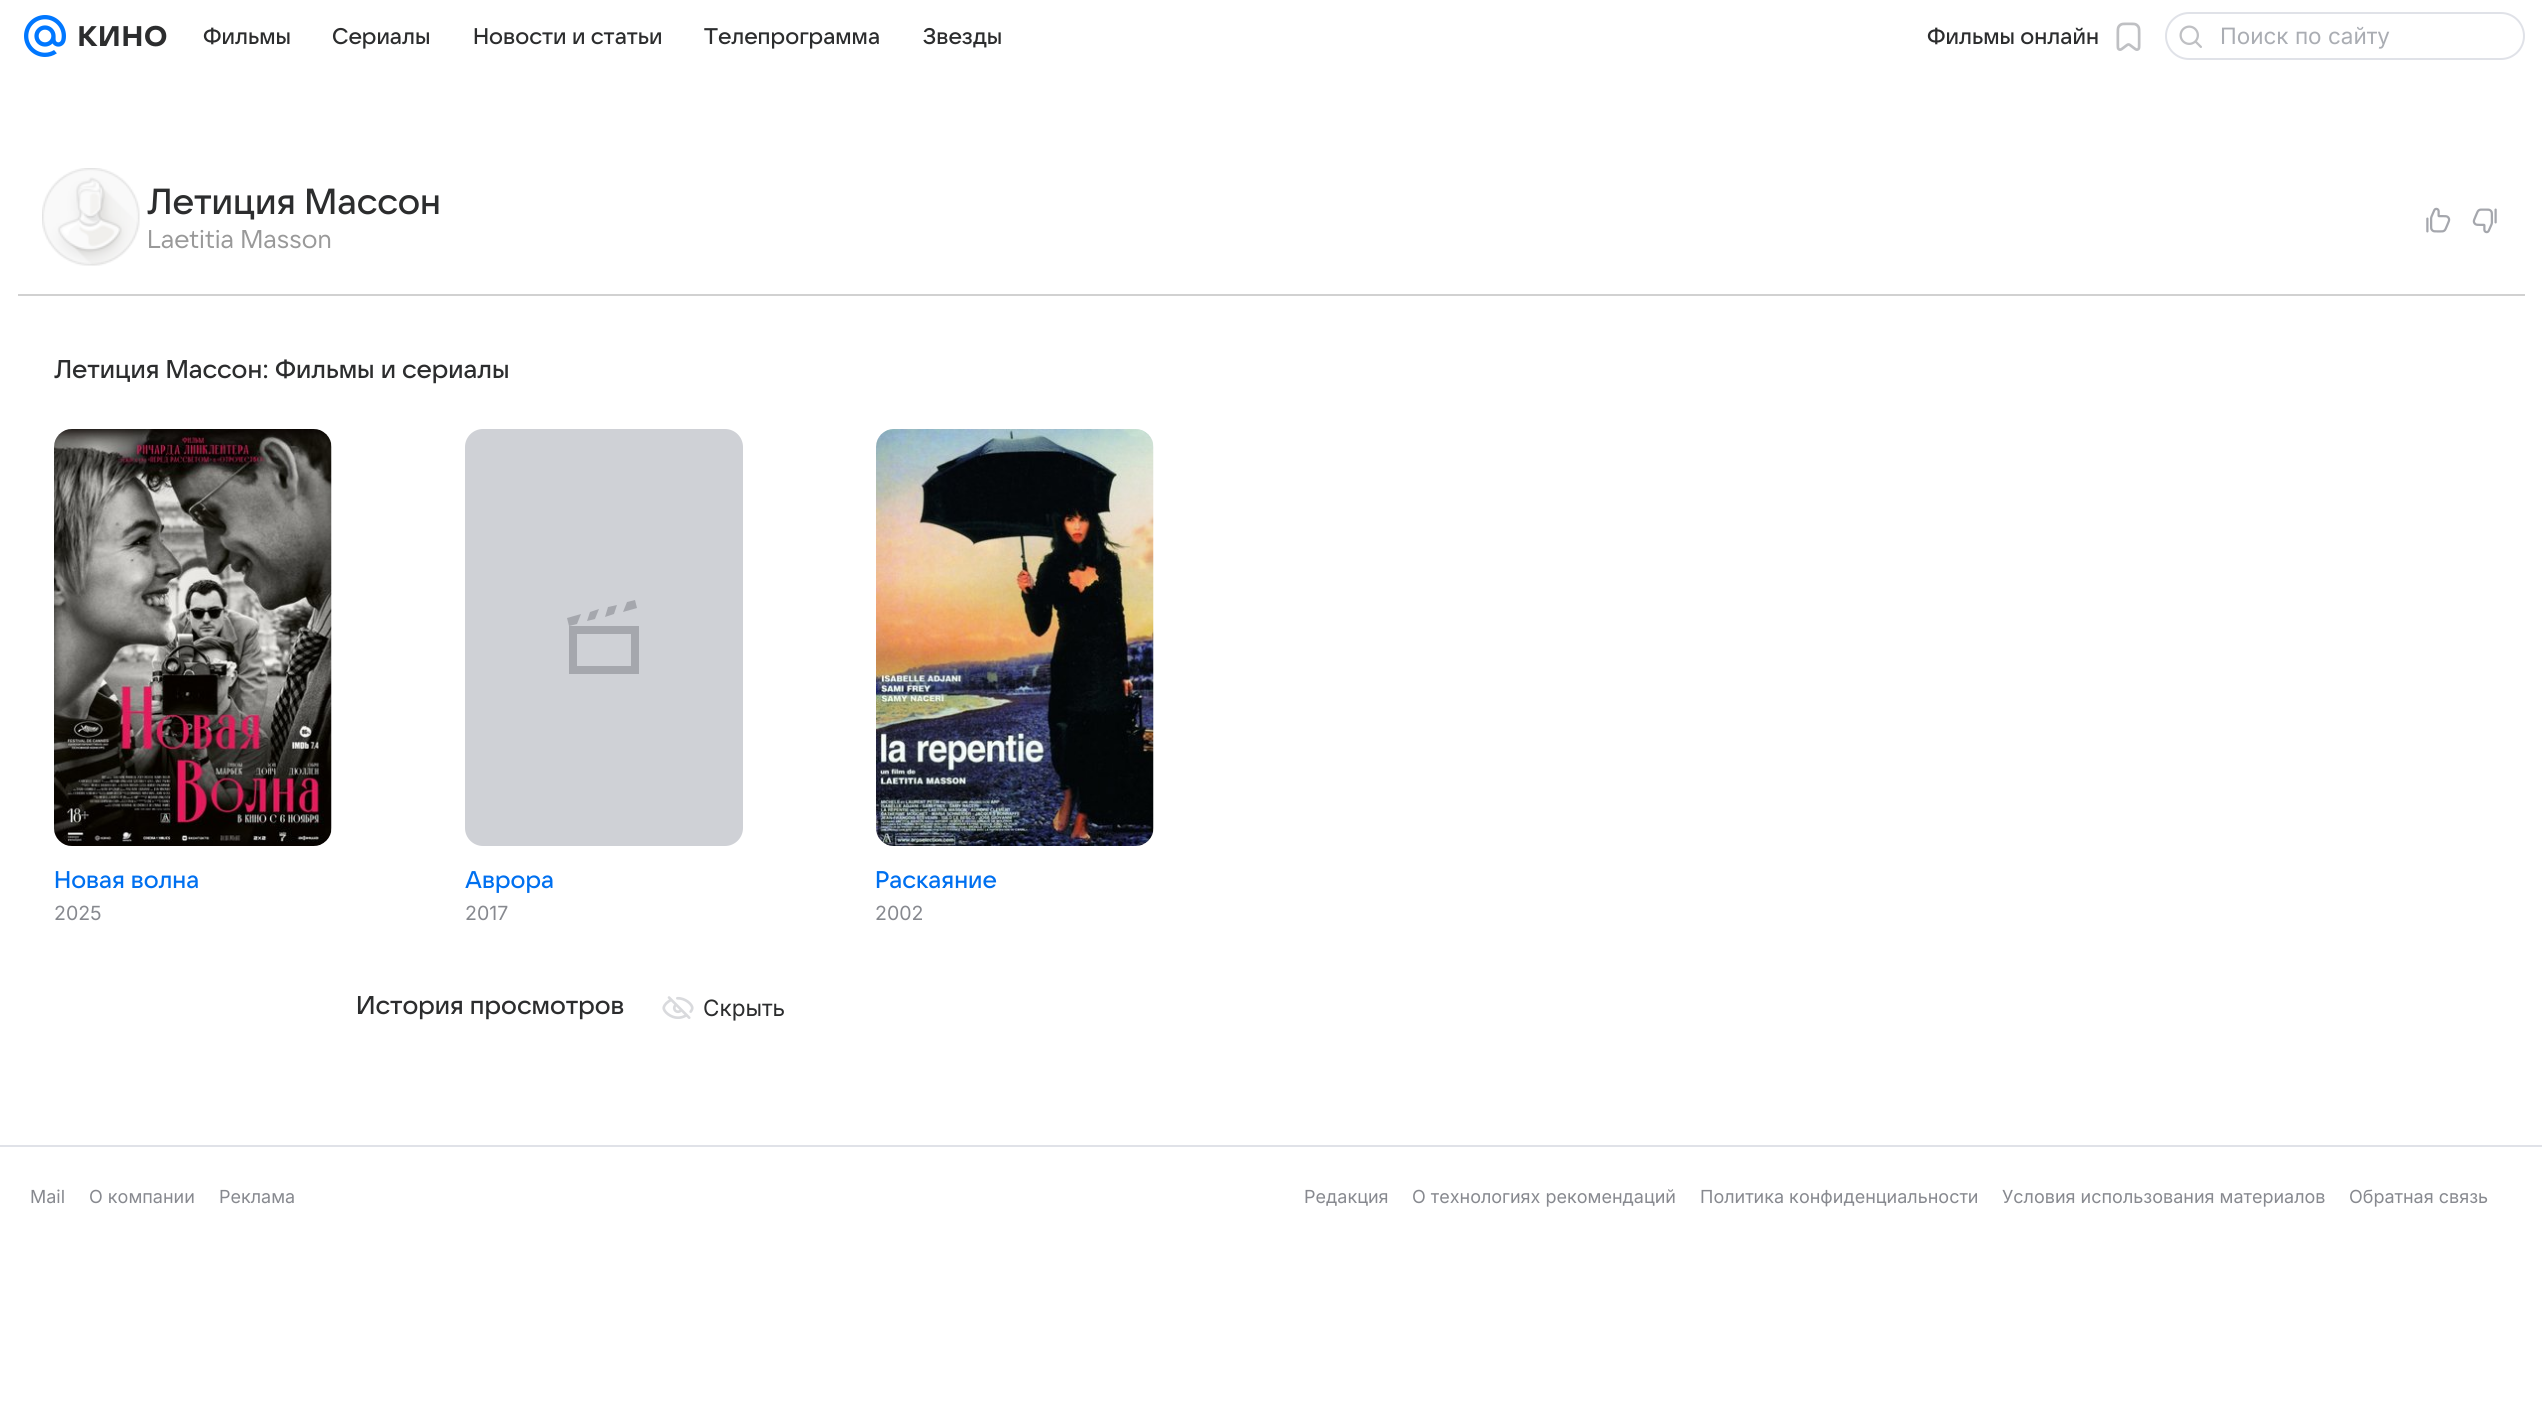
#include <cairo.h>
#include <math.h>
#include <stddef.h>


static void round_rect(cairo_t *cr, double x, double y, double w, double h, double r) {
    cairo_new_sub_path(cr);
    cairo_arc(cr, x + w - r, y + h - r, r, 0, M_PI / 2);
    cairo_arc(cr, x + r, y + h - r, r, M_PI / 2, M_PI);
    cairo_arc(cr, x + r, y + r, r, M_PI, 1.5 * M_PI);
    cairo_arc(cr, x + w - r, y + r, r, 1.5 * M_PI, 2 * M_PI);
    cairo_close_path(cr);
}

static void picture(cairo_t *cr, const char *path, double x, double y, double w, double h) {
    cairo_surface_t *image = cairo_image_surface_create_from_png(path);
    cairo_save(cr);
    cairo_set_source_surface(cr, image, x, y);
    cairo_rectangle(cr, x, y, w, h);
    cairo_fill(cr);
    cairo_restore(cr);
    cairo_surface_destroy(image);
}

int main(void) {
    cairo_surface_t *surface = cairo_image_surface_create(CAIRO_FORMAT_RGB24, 2542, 1415);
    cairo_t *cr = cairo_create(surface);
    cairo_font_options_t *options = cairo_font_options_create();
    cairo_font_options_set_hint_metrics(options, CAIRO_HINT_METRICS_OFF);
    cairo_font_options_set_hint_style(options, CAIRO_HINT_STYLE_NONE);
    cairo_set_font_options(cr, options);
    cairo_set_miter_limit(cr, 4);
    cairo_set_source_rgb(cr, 1, 1, 1);
    cairo_paint(cr);
    picture(cr, "img1.png", 24, 15, 42, 42);
    picture(cr, "img2.png", 79, 25, 88, 22);
    cairo_select_font_face(cr, "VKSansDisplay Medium", CAIRO_FONT_SLANT_NORMAL, CAIRO_FONT_WEIGHT_NORMAL);
    cairo_set_font_size(cr, 22.5);
    cairo_set_source_rgb(cr, 0.173, 0.176, 0.18);
    cairo_move_to(cr, 203, 44);
    cairo_show_text(cr, "Фильмы");
    cairo_move_to(cr, 332, 44);
    cairo_show_text(cr, "Сериалы");
    cairo_move_to(cr, 473, 44);
    cairo_show_text(cr, "Новости и статьи");
    cairo_move_to(cr, 704, 44);
    cairo_show_text(cr, "Телепрограмма");
    cairo_move_to(cr, 923, 44);
    cairo_show_text(cr, "Звезды");
    cairo_move_to(cr, 1927, 44);
    cairo_show_text(cr, "Фильмы онлайн");
    picture(cr, "img3.png", 2116, 22, 25, 29);
    round_rect(cr, 2166, 13, 358, 46, 23);
    cairo_set_source_rgb(cr, 0.878, 0.886, 0.91);
    cairo_stroke(cr);
    picture(cr, "img4.png", 2179, 25, 23, 23);
    cairo_select_font_face(cr, "Inter", CAIRO_FONT_SLANT_NORMAL, CAIRO_FONT_WEIGHT_NORMAL);
    cairo_set_source_rgb(cr, 0.667, 0.678, 0.702);
    cairo_move_to(cr, 2220, 44);
    cairo_show_text(cr, "Поиск по сайту");
    cairo_set_source_rgb(cr, 0.82, 0.82, 0.82);
    cairo_rectangle(cr, 18, 294, 2507, 2);
    cairo_fill(cr);
    picture(cr, "img5.png", 42, 168, 98, 98);
    cairo_select_font_face(cr, "VKSansDisplay Medium", CAIRO_FONT_SLANT_NORMAL, CAIRO_FONT_WEIGHT_NORMAL);
    cairo_set_font_size(cr, 36);
    cairo_set_source_rgb(cr, 0.173, 0.176, 0.18);
    cairo_move_to(cr, 147, 214);
    cairo_show_text(cr, "Летиция Массон");
    cairo_select_font_face(cr, "VKSansDisplay", CAIRO_FONT_SLANT_NORMAL, CAIRO_FONT_WEIGHT_NORMAL);
    cairo_set_font_size(cr, 25.5);
    cairo_set_source_rgb(cr, 0.6, 0.6, 0.6);
    cairo_move_to(cr, 147, 248);
    cairo_show_text(cr, "Laetitia Masson");
    picture(cr, "img6.png", 2426, 207, 25, 26);
    picture(cr, "img7.png", 2472, 208, 25, 26);
    cairo_select_font_face(cr, "VKSansDisplay Medium", CAIRO_FONT_SLANT_NORMAL, CAIRO_FONT_WEIGHT_NORMAL);
    cairo_set_source_rgb(cr, 0.173, 0.176, 0.18);
    cairo_move_to(cr, 54, 378);
    cairo_show_text(cr, "Летиция Массон: Фильмы и сериалы");
    picture(cr, "img8.png", 54, 429, 278, 417);
    cairo_set_font_size(cr, 24);
    cairo_set_source_rgb(cr, 0, 0.439, 0.941);
    cairo_move_to(cr, 54, 888);
    cairo_show_text(cr, "Новая волна");
    cairo_select_font_face(cr, "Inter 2", CAIRO_FONT_SLANT_NORMAL, CAIRO_FONT_WEIGHT_NORMAL);
    cairo_set_font_size(cr, 19.5);
    cairo_set_source_rgb(cr, 0.529, 0.537, 0.561);
    cairo_move_to(cr, 54, 920);
    cairo_show_text(cr, "2025");
    cairo_set_source_rgb(cr, 0.812, 0.82, 0.839);
    round_rect(cr, 465, 429, 278, 417, 18);
    cairo_fill(cr);
    cairo_set_source_rgb(cr, 0.647, 0.655, 0.678);
    cairo_set_fill_rule(cr, CAIRO_FILL_RULE_EVEN_ODD);
    cairo_new_path(cr);
    cairo_move_to(cr, 637, 608);
    cairo_line_to(cr, 623, 612);
    cairo_line_to(cr, 627, 602);
    cairo_line_to(cr, 635, 600);
    cairo_close_path(cr);
    cairo_move_to(cr, 595, 619);
    cairo_line_to(cr, 587, 621);
    cairo_line_to(cr, 590, 612);
    cairo_line_to(cr, 599, 609);
    cairo_close_path(cr);
    cairo_move_to(cr, 567, 618);
    cairo_line_to(cr, 581, 614);
    cairo_line_to(cr, 577, 624);
    cairo_line_to(cr, 569, 626);
    cairo_close_path(cr);
    cairo_move_to(cr, 617, 605);
    cairo_line_to(cr, 608, 607);
    cairo_line_to(cr, 605, 617);
    cairo_line_to(cr, 614, 614);
    cairo_close_path(cr);
    cairo_move_to(cr, 577, 634);
    cairo_line_to(cr, 631, 634);
    cairo_line_to(cr, 631, 666);
    cairo_line_to(cr, 577, 666);
    cairo_close_path(cr);
    cairo_move_to(cr, 569, 674);
    cairo_line_to(cr, 569, 626);
    cairo_line_to(cr, 639, 626);
    cairo_line_to(cr, 639, 674);
    cairo_close_path(cr);
    cairo_fill(cr);
    cairo_select_font_face(cr, "VKSansDisplay Medium", CAIRO_FONT_SLANT_NORMAL, CAIRO_FONT_WEIGHT_NORMAL);
    cairo_set_font_size(cr, 24);
    cairo_set_source_rgb(cr, 0, 0.439, 0.941);
    cairo_move_to(cr, 465, 888);
    cairo_show_text(cr, "Аврора");
    cairo_select_font_face(cr, "Inter 2", CAIRO_FONT_SLANT_NORMAL, CAIRO_FONT_WEIGHT_NORMAL);
    cairo_set_font_size(cr, 19.5);
    cairo_set_source_rgb(cr, 0.529, 0.537, 0.561);
    cairo_move_to(cr, 465, 920);
    cairo_show_text(cr, "2017");
    picture(cr, "img9.png", 876, 429, 278, 417);
    cairo_select_font_face(cr, "VKSansDisplay Medium", CAIRO_FONT_SLANT_NORMAL, CAIRO_FONT_WEIGHT_NORMAL);
    cairo_set_font_size(cr, 24);
    cairo_set_source_rgb(cr, 0, 0.439, 0.941);
    cairo_move_to(cr, 875, 888);
    cairo_show_text(cr, "Раскаяние");
    cairo_select_font_face(cr, "Inter 2", CAIRO_FONT_SLANT_NORMAL, CAIRO_FONT_WEIGHT_NORMAL);
    cairo_set_font_size(cr, 19.5);
    cairo_set_source_rgb(cr, 0.529, 0.537, 0.561);
    cairo_move_to(cr, 875, 920);
    cairo_show_text(cr, "2002");
    cairo_select_font_face(cr, "VKSansDisplay Medium", CAIRO_FONT_SLANT_NORMAL, CAIRO_FONT_WEIGHT_NORMAL);
    cairo_set_font_size(cr, 25.5);
    cairo_set_source_rgb(cr, 0.173, 0.176, 0.18);
    cairo_move_to(cr, 356, 1014);
    cairo_show_text(cr, "История просмотров");
    picture(cr, "img10.png", 662, 996, 32, 23);
    cairo_select_font_face(cr, "Inter", CAIRO_FONT_SLANT_NORMAL, CAIRO_FONT_WEIGHT_NORMAL);
    cairo_set_font_size(cr, 22.5);
    cairo_move_to(cr, 703, 1016);
    cairo_show_text(cr, "Скрыть");
    cairo_set_source_rgb(cr, 0.878, 0.886, 0.91);
    cairo_rectangle(cr, 0, 1145, 2542, 2);
    cairo_fill(cr);
    cairo_set_font_size(cr, 18);
    cairo_set_source_rgb(cr, 0.529, 0.537, 0.561);
    cairo_move_to(cr, 30, 1203);
    cairo_show_text(cr, "Mail");
    cairo_move_to(cr, 89, 1203);
    cairo_show_text(cr, "О компании");
    cairo_move_to(cr, 219, 1203);
    cairo_show_text(cr, "Реклама");
    cairo_move_to(cr, 1304, 1203);
    cairo_show_text(cr, "Редакция");
    cairo_move_to(cr, 1412, 1203);
    cairo_show_text(cr, "О технологиях рекомендаций");
    cairo_move_to(cr, 1700, 1203);
    cairo_show_text(cr, "Политика конфиденциальности");
    cairo_move_to(cr, 2002, 1203);
    cairo_show_text(cr, "Условия использования материалов");
    cairo_move_to(cr, 2349, 1203);
    cairo_show_text(cr, "Обратная связь");
    cairo_surface_write_to_png(surface, "page.png");
    cairo_font_options_destroy(options);
    cairo_destroy(cr);
    cairo_surface_destroy(surface);
    return 0;
}
